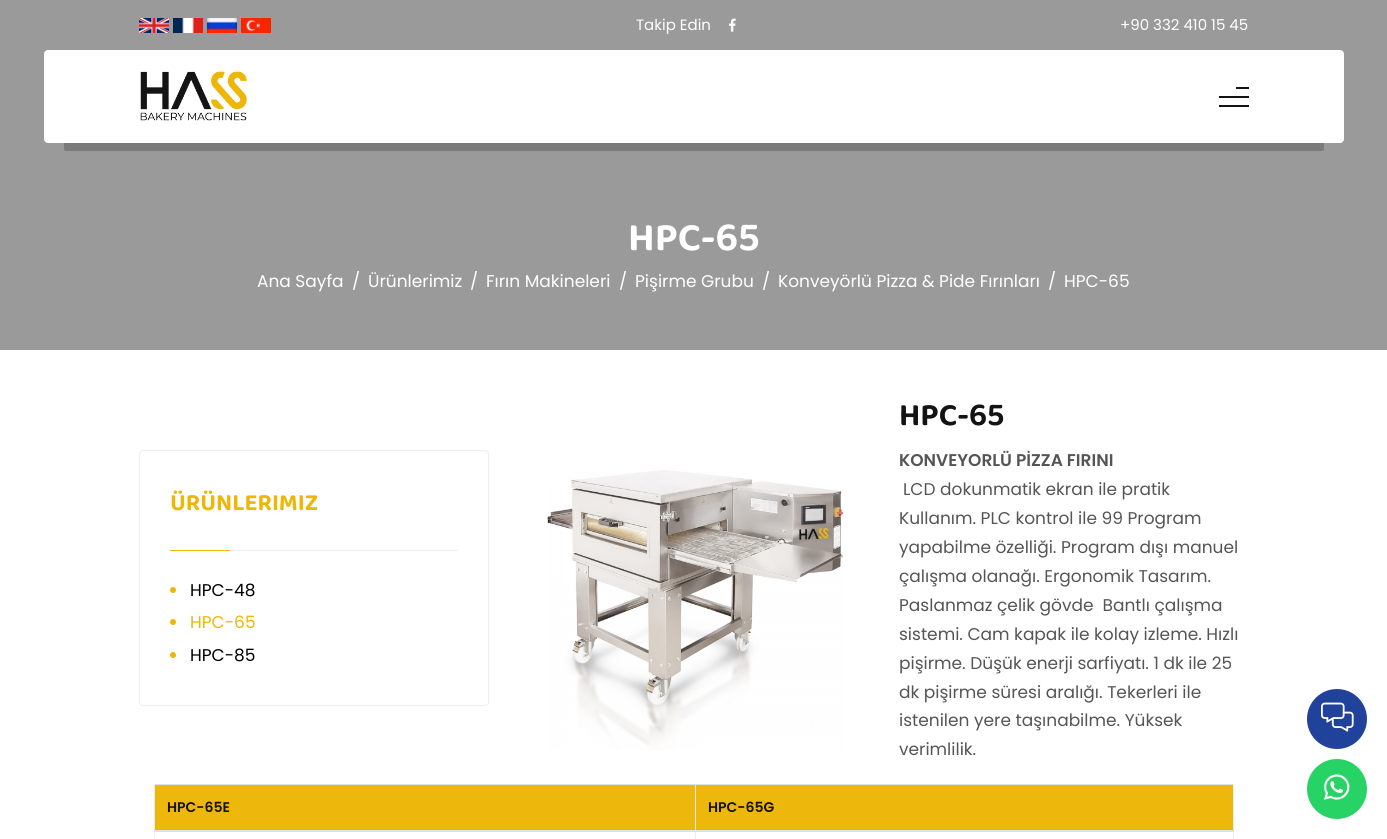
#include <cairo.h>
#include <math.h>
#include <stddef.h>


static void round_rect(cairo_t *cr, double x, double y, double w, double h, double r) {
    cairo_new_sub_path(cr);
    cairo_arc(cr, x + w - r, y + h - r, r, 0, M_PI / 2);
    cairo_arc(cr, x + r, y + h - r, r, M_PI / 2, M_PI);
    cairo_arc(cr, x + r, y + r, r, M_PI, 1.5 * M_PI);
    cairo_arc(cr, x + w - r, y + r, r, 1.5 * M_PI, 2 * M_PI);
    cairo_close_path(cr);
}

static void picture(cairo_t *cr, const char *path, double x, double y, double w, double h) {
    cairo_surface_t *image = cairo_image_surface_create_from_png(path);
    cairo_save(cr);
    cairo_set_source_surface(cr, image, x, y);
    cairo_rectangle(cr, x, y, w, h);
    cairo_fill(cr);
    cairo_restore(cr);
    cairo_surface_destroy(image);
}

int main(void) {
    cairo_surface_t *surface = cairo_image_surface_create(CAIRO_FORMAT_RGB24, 1387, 839);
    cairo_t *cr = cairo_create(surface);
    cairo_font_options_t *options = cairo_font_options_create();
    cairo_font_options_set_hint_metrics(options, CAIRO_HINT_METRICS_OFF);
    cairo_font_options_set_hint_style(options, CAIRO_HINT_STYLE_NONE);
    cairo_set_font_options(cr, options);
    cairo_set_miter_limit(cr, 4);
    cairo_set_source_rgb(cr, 1, 1, 1);
    cairo_paint(cr);
    cairo_set_source_rgb(cr, 0.604, 0.604, 0.604);
    cairo_rectangle(cr, 0, 0, 1387, 350);
    cairo_fill(cr);
    picture(cr, "img1.png", 139, 18, 30, 15);
    picture(cr, "img2.png", 173, 18, 30, 15);
    picture(cr, "img3.png", 207, 18, 30, 15);
    picture(cr, "img4.png", 241, 18, 30, 15);
    cairo_select_font_face(cr, "Poppins", CAIRO_FONT_SLANT_NORMAL, CAIRO_FONT_WEIGHT_NORMAL);
    cairo_set_font_size(cr, 15);
    cairo_set_source_rgb(cr, 1, 1, 1);
    cairo_move_to(cr, 636, 30);
    cairo_show_text(cr, "Takip Edin");
    picture(cr, "img5.png", 729, 18, 7, 14);
    cairo_move_to(cr, 1120, 30);
    cairo_show_text(cr, "+90 332 410 15 45");
    round_rect(cr, 44, 50, 1300, 93, 4);
    cairo_fill(cr);
    picture(cr, "img6.png", 140, 71, 107, 50);
    cairo_set_source_rgb(cr, 0.078, 0.078, 0.078);
    cairo_rectangle(cr, 1236, 87, 13, 2);
    cairo_fill(cr);
    cairo_rectangle(cr, 1219, 96, 30, 2);
    cairo_fill(cr);
    cairo_rectangle(cr, 1219, 105, 30, 2);
    cairo_fill(cr);
    cairo_set_source_rgb(cr, 0.482, 0.482, 0.482);
    cairo_new_path(cr);
    cairo_move_to(cr, 64, 143);
    cairo_line_to(cr, 1324, 143);
    cairo_line_to(cr, 1324, 149);
    cairo_curve_to(cr, 1324, 150, 1323, 151, 1322, 151);
    cairo_line_to(cr, 66, 151);
    cairo_curve_to(cr, 65, 151, 64, 150, 64, 149);
    cairo_close_path(cr);
    cairo_fill(cr);
    cairo_select_font_face(cr, "Baloo Tamma 2", CAIRO_FONT_SLANT_NORMAL, CAIRO_FONT_WEIGHT_BOLD);
    cairo_set_font_size(cr, 40);
    cairo_set_source_rgb(cr, 1, 1, 1);
    cairo_move_to(cr, 628, 250);
    cairo_show_text(cr, "HPC-65");
    cairo_select_font_face(cr, "Poppins", CAIRO_FONT_SLANT_NORMAL, CAIRO_FONT_WEIGHT_NORMAL);
    cairo_set_font_size(cr, 17);
    cairo_move_to(cr, 257, 287);
    cairo_show_text(cr, "Ana Sayfa");
    cairo_move_to(cr, 352, 287);
    cairo_show_text(cr, "/");
    cairo_move_to(cr, 368, 287);
    cairo_show_text(cr, "Ürünlerimiz");
    cairo_move_to(cr, 470, 287);
    cairo_show_text(cr, "/");
    cairo_move_to(cr, 486, 287);
    cairo_show_text(cr, "Fırın Makineleri");
    cairo_move_to(cr, 619, 287);
    cairo_show_text(cr, "/");
    cairo_move_to(cr, 635, 287);
    cairo_show_text(cr, "Pişirme Grubu");
    cairo_move_to(cr, 762, 287);
    cairo_show_text(cr, "/");
    cairo_move_to(cr, 778, 287);
    cairo_show_text(cr, "Konveyörlü Pizza & Pide Fırınları");
    cairo_move_to(cr, 1048, 287);
    cairo_show_text(cr, "/");
    cairo_move_to(cr, 1064, 287);
    cairo_show_text(cr, "HPC-65");
    round_rect(cr, 139.5, 450.5, 349, 255, 3.5);
    cairo_set_source_rgb(cr, 0.933, 0.933, 0.933);
    cairo_set_line_width(cr, 1);
    cairo_stroke(cr);
    cairo_rectangle(cr, 230, 550, 228, 1);
    cairo_fill(cr);
    cairo_select_font_face(cr, "Baloo Tamma 2", CAIRO_FONT_SLANT_NORMAL, CAIRO_FONT_WEIGHT_BOLD);
    cairo_set_font_size(cr, 24);
    cairo_set_source_rgb(cr, 0.929, 0.718, 0.039);
    cairo_move_to(cr, 170, 510);
    cairo_show_text(cr, "ÜRÜNLERIMIZ");
    cairo_rectangle(cr, 170, 550, 60, 1);
    cairo_fill(cr);
    cairo_arc(cr, 173, 590, 3, 0, 2 * M_PI);
    cairo_fill(cr);
    cairo_select_font_face(cr, "Poppins", CAIRO_FONT_SLANT_NORMAL, CAIRO_FONT_WEIGHT_NORMAL);
    cairo_set_font_size(cr, 17);
    cairo_set_source_rgb(cr, 0, 0, 0);
    cairo_move_to(cr, 190, 596);
    cairo_show_text(cr, "HPC-48");
    cairo_set_source_rgb(cr, 0.929, 0.718, 0.039);
    cairo_new_path(cr);
    cairo_arc(cr, 173, 622, 3, 0, 2 * M_PI);
    cairo_fill(cr);
    cairo_move_to(cr, 190, 628);
    cairo_show_text(cr, "HPC-65");
    cairo_new_path(cr);
    cairo_arc(cr, 173, 655, 3, 0, 2 * M_PI);
    cairo_fill(cr);
    cairo_set_source_rgb(cr, 0, 0, 0);
    cairo_move_to(cr, 190, 661);
    cairo_show_text(cr, "HPC-85");
    picture(cr, "img7.png", 547, 470, 297, 280);
    cairo_select_font_face(cr, "Baloo Tamma 2", CAIRO_FONT_SLANT_NORMAL, CAIRO_FONT_WEIGHT_BOLD);
    cairo_set_font_size(cr, 32);
    cairo_set_source_rgb(cr, 0.078, 0.078, 0.078);
    cairo_move_to(cr, 899, 425);
    cairo_show_text(cr, "HPC-65");
    cairo_select_font_face(cr, "Poppins SemiBold", CAIRO_FONT_SLANT_NORMAL, CAIRO_FONT_WEIGHT_NORMAL);
    cairo_set_font_size(cr, 17);
    cairo_set_source_rgb(cr, 0.333, 0.333, 0.333);
    cairo_move_to(cr, 899, 466);
    cairo_show_text(cr, "KONVEYORLÜ PİZZA FIRINI");
    cairo_select_font_face(cr, "Poppins", CAIRO_FONT_SLANT_NORMAL, CAIRO_FONT_WEIGHT_NORMAL);
    cairo_move_to(cr, 903, 495);
    cairo_show_text(cr, "LCD dokunmatik ekran ile pratik");
    cairo_move_to(cr, 899, 524);
    cairo_show_text(cr, "Kullanım. PLC kontrol ile 99 Program");
    cairo_move_to(cr, 899, 553);
    cairo_show_text(cr, "yapabilme özelliği. Program dışı manuel");
    cairo_move_to(cr, 899, 582);
    cairo_show_text(cr, "çalışma olanağı. Ergonomik Tasarım.");
    cairo_move_to(cr, 899, 611);
    cairo_show_text(cr, "Paslanmaz çelik gövde  Bantlı çalışma");
    cairo_move_to(cr, 899, 640);
    cairo_show_text(cr, "sistemi. Cam kapak ile kolay izleme. Hızlı");
    cairo_move_to(cr, 899, 669);
    cairo_show_text(cr, "pişirme. Düşük enerji sarfiyatı. 1 dk ile 25");
    cairo_move_to(cr, 899, 698);
    cairo_show_text(cr, "dk pişirme süresi aralığı. Tekerleri ile");
    cairo_move_to(cr, 899, 726);
    cairo_show_text(cr, "istenilen yere taşınabilme. Yüksek");
    cairo_move_to(cr, 899, 755);
    cairo_show_text(cr, "verimlilik.");
    cairo_set_source_rgb(cr, 0.929, 0.718, 0.043);
    cairo_rectangle(cr, 155, 785, 540, 45);
    cairo_fill(cr);
    cairo_set_source_rgb(cr, 0.871, 0.886, 0.902);
    cairo_rectangle(cr, 154, 784, 1080, 1);
    cairo_fill(cr);
    cairo_set_source_rgb(cr, 0.933, 0.933, 0.933);
    cairo_rectangle(cr, 695, 831, 1, 8);
    cairo_fill(cr);
    cairo_rectangle(cr, 695, 784, 1, 48);
    cairo_fill(cr);
    cairo_rectangle(cr, 154, 831, 1, 8);
    cairo_fill(cr);
    cairo_rectangle(cr, 154, 784, 1, 48);
    cairo_fill(cr);
    cairo_select_font_face(cr, "Poppins SemiBold", CAIRO_FONT_SLANT_NORMAL, CAIRO_FONT_WEIGHT_NORMAL);
    cairo_set_font_size(cr, 14);
    cairo_set_source_rgb(cr, 0.078, 0.078, 0.078);
    cairo_move_to(cr, 167, 812);
    cairo_show_text(cr, "HPC-65E");
    cairo_set_source_rgb(cr, 0.929, 0.718, 0.043);
    cairo_rectangle(cr, 696, 785, 537, 45);
    cairo_fill(cr);
    cairo_set_source_rgb(cr, 0.933, 0.933, 0.933);
    cairo_rectangle(cr, 1233, 831, 1, 8);
    cairo_fill(cr);
    cairo_rectangle(cr, 1233, 784, 1, 48);
    cairo_fill(cr);
    cairo_set_source_rgb(cr, 0.871, 0.886, 0.902);
    cairo_rectangle(cr, 154, 830, 1080, 2);
    cairo_fill(cr);
    cairo_set_source_rgb(cr, 0.078, 0.078, 0.078);
    cairo_move_to(cr, 708, 812);
    cairo_show_text(cr, "HPC-65G");
    cairo_set_source_rgb(cr, 0.125, 0.259, 0.604);
    cairo_new_path(cr);
    cairo_arc(cr, 1337, 719, 30, 0, 2 * M_PI);
    cairo_fill(cr);
    picture(cr, "img8.png", 1321, 702, 33, 30);
    cairo_set_source_rgb(cr, 0.157, 0.827, 0.4);
    cairo_arc(cr, 1337, 789, 30, 0, 2 * M_PI);
    cairo_fill(cr);
    picture(cr, "img9.png", 1324, 774, 26, 26);
    cairo_surface_write_to_png(surface, "page.png");
    cairo_font_options_destroy(options);
    cairo_destroy(cr);
    cairo_surface_destroy(surface);
    return 0;
}
